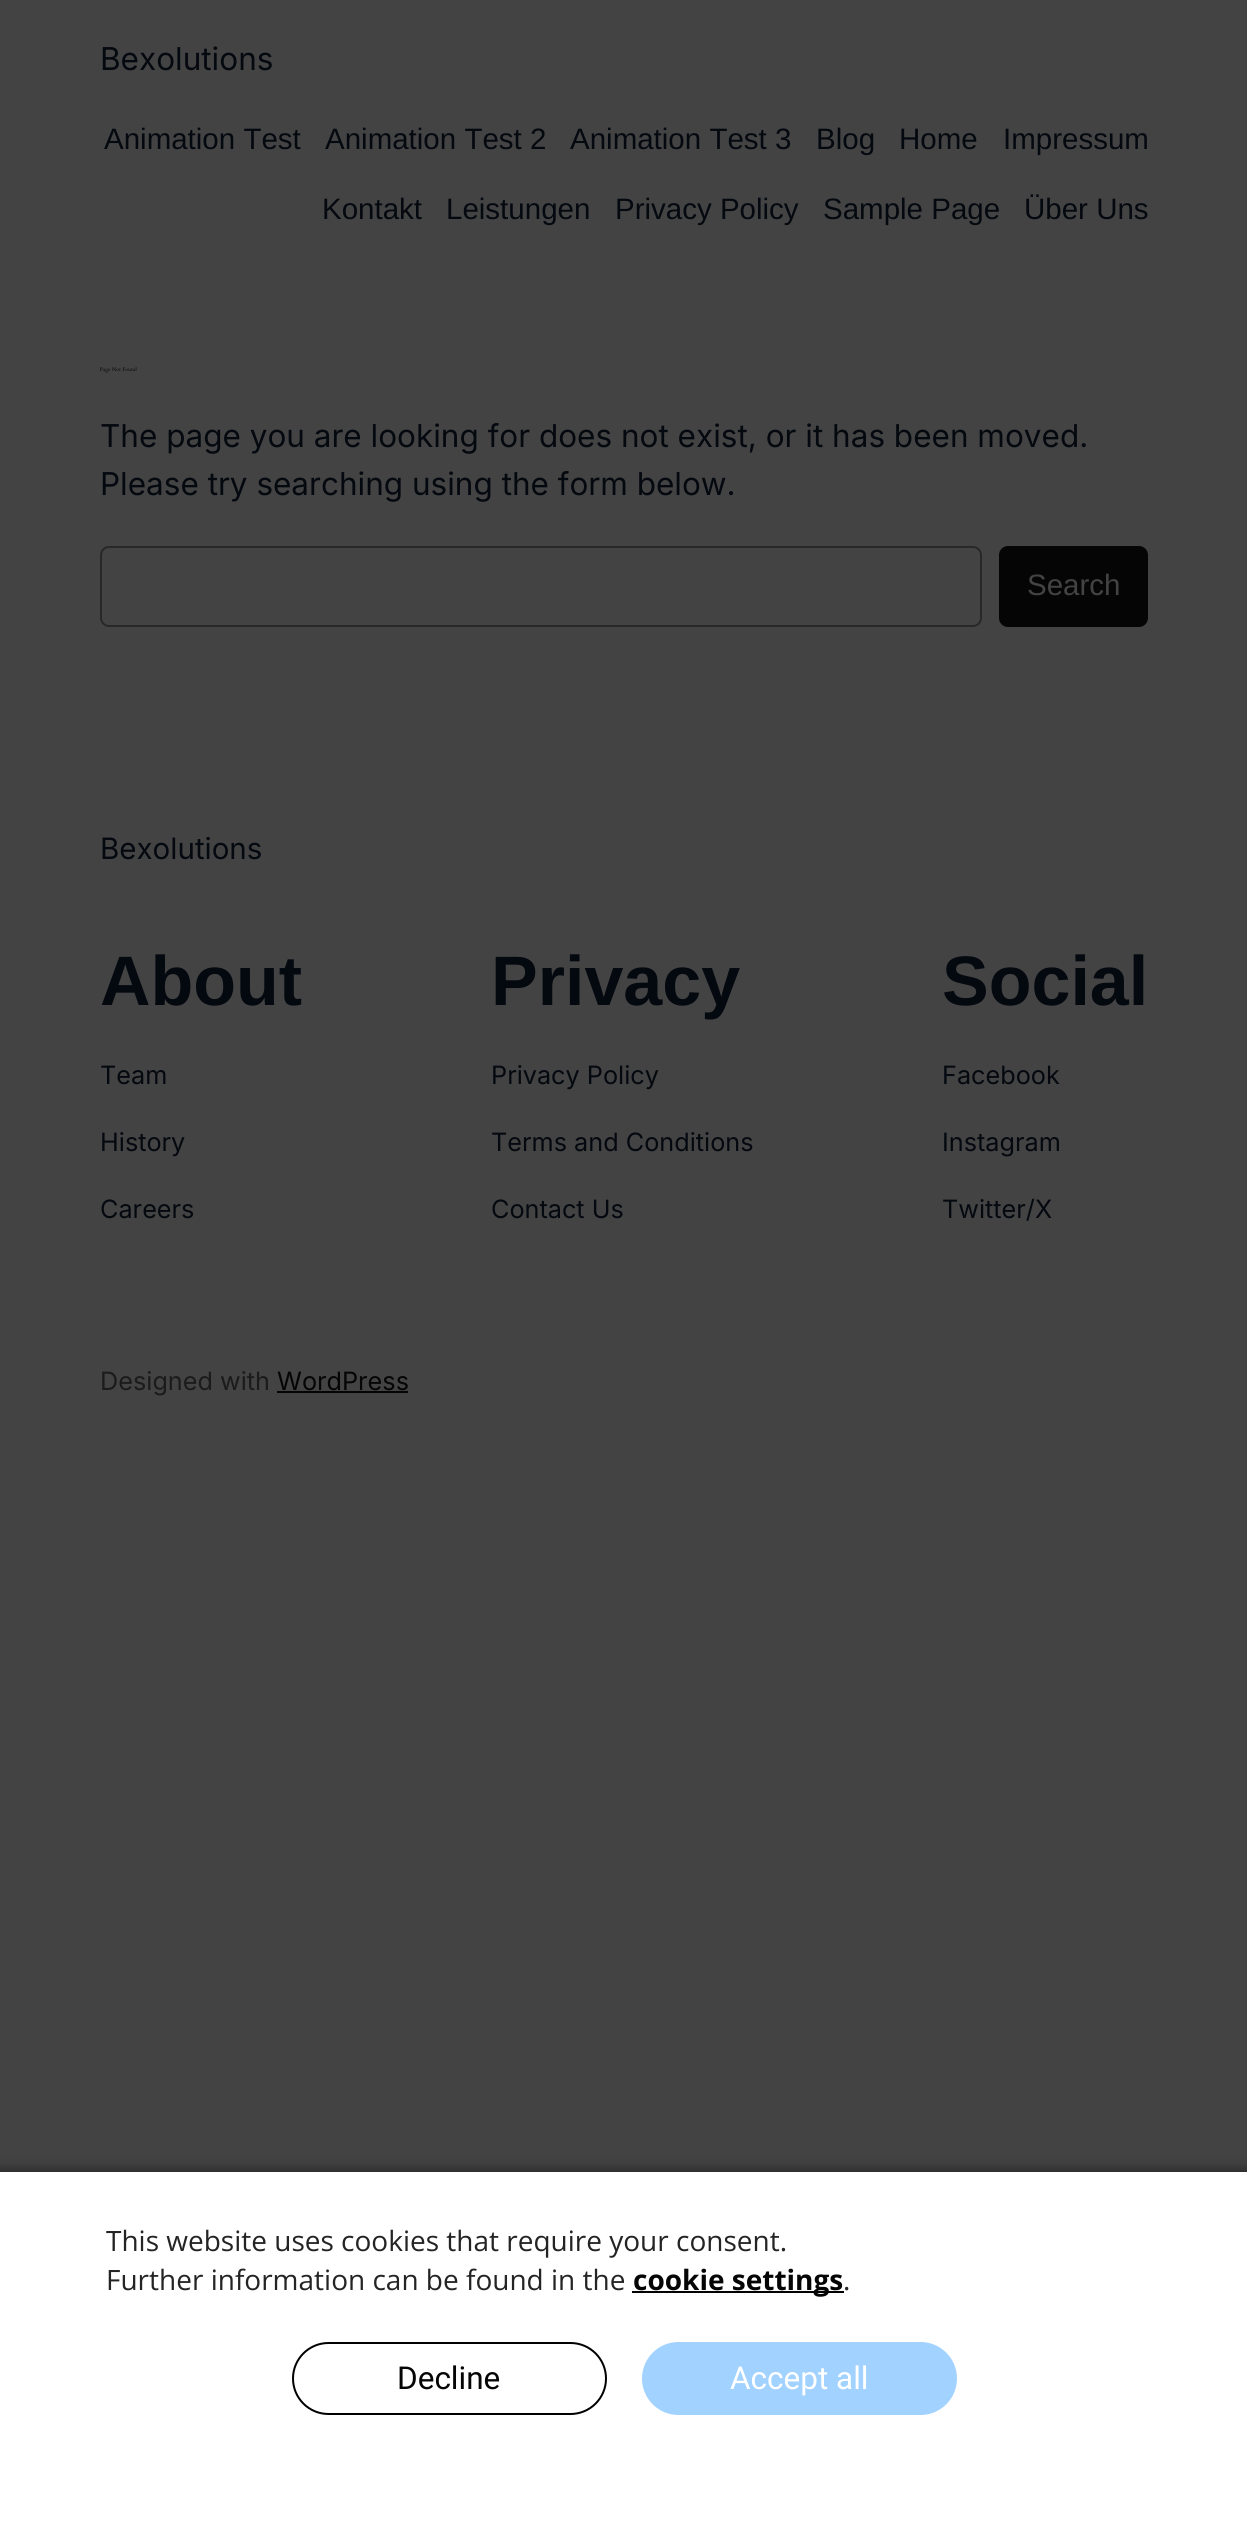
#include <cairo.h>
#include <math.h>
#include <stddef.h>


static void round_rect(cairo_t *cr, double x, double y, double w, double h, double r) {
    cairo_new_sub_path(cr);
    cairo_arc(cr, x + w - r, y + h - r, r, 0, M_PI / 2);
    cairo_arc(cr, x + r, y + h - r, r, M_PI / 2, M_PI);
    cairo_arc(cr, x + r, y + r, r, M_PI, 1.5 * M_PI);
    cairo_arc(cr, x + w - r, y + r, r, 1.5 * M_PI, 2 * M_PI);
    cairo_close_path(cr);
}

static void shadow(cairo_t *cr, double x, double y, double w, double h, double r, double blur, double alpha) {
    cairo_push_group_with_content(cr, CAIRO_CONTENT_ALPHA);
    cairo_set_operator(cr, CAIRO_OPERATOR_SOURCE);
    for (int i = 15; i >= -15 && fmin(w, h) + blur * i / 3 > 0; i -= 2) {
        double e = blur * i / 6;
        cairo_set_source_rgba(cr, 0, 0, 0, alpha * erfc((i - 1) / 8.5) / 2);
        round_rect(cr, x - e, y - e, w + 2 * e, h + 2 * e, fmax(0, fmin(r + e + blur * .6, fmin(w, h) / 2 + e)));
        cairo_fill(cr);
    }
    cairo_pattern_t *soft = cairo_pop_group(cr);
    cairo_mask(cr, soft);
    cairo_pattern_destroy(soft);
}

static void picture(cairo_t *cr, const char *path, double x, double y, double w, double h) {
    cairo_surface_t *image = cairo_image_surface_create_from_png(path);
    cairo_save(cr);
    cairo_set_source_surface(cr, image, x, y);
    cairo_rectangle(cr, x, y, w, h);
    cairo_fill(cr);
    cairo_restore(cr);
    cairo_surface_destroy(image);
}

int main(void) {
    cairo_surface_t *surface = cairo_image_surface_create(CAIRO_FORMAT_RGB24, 1247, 2546);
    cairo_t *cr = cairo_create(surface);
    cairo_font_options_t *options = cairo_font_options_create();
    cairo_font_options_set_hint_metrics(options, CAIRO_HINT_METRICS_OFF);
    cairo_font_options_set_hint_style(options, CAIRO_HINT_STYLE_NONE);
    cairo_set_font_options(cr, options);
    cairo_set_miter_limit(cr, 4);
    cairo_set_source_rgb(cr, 0.263, 0.263, 0.263);
    cairo_paint(cr);
    cairo_select_font_face(cr, "Inter", CAIRO_FONT_SLANT_NORMAL, CAIRO_FONT_WEIGHT_NORMAL);
    cairo_set_font_size(cr, 31.5);
    cairo_set_source_rgb(cr, 0.016, 0.035, 0.059);
    cairo_move_to(cr, 100, 70);
    cairo_show_text(cr, "Bexolutions");
    cairo_select_font_face(cr, "Liberation Sans", CAIRO_FONT_SLANT_NORMAL, CAIRO_FONT_WEIGHT_NORMAL);
    cairo_set_font_size(cr, 29.5);
    cairo_move_to(cr, 104, 149);
    cairo_show_text(cr, "Animation Test");
    cairo_move_to(cr, 325, 149);
    cairo_show_text(cr, "Animation Test 2");
    cairo_move_to(cr, 570, 149);
    cairo_show_text(cr, "Animation Test 3");
    cairo_move_to(cr, 816, 149);
    cairo_show_text(cr, "Blog");
    cairo_move_to(cr, 899, 149);
    cairo_show_text(cr, "Home");
    cairo_move_to(cr, 1003, 149);
    cairo_show_text(cr, "Impressum");
    cairo_move_to(cr, 322, 219);
    cairo_show_text(cr, "Kontakt");
    cairo_move_to(cr, 446, 219);
    cairo_show_text(cr, "Leistungen");
    cairo_move_to(cr, 615, 219);
    cairo_show_text(cr, "Privacy Policy");
    cairo_move_to(cr, 823, 219);
    cairo_show_text(cr, "Sample Page");
    cairo_move_to(cr, 1024, 219);
    cairo_show_text(cr, "Über Uns");
    picture(cr, "img1.png", 100, 366, 37, 7);
    cairo_select_font_face(cr, "Inter", CAIRO_FONT_SLANT_NORMAL, CAIRO_FONT_WEIGHT_NORMAL);
    cairo_set_font_size(cr, 31.5);
    cairo_move_to(cr, 100, 447);
    cairo_show_text(cr, "The page you are looking for does not exist, or it has been moved.");
    cairo_move_to(cr, 100, 495);
    cairo_show_text(cr, "Please try searching using the form below.");
    round_rect(cr, 101, 547, 880, 79, 8);
    cairo_set_source_rgb(cr, 0.157, 0.157, 0.157);
    cairo_stroke(cr);
    cairo_set_source_rgb(cr, 0.02, 0.02, 0.02);
    round_rect(cr, 999, 546, 149, 81, 9);
    cairo_fill(cr);
    cairo_select_font_face(cr, "Liberation Sans", CAIRO_FONT_SLANT_NORMAL, CAIRO_FONT_WEIGHT_NORMAL);
    cairo_set_font_size(cr, 29.5);
    cairo_set_source_rgb(cr, 0.263, 0.263, 0.263);
    cairo_move_to(cr, 1027, 595);
    cairo_show_text(cr, "Search");
    cairo_select_font_face(cr, "Inter", CAIRO_FONT_SLANT_NORMAL, CAIRO_FONT_WEIGHT_NORMAL);
    cairo_set_source_rgb(cr, 0.016, 0.035, 0.059);
    cairo_move_to(cr, 100, 859);
    cairo_show_text(cr, "Bexolutions");
    cairo_select_font_face(cr, "Liberation Sans", CAIRO_FONT_SLANT_NORMAL, CAIRO_FONT_WEIGHT_BOLD);
    cairo_set_font_size(cr, 70);
    cairo_move_to(cr, 100, 1005);
    cairo_show_text(cr, "About");
    cairo_select_font_face(cr, "Inter", CAIRO_FONT_SLANT_NORMAL, CAIRO_FONT_WEIGHT_NORMAL);
    cairo_set_font_size(cr, 25.25);
    cairo_move_to(cr, 100, 1084);
    cairo_show_text(cr, "Team");
    cairo_move_to(cr, 100, 1151);
    cairo_show_text(cr, "History");
    cairo_move_to(cr, 100, 1218);
    cairo_show_text(cr, "Careers");
    cairo_select_font_face(cr, "Liberation Sans", CAIRO_FONT_SLANT_NORMAL, CAIRO_FONT_WEIGHT_BOLD);
    cairo_set_font_size(cr, 70);
    cairo_move_to(cr, 491, 1005);
    cairo_show_text(cr, "Privacy");
    cairo_select_font_face(cr, "Inter", CAIRO_FONT_SLANT_NORMAL, CAIRO_FONT_WEIGHT_NORMAL);
    cairo_set_font_size(cr, 25.25);
    cairo_move_to(cr, 491, 1084);
    cairo_show_text(cr, "Privacy Policy");
    cairo_move_to(cr, 491, 1151);
    cairo_show_text(cr, "Terms and Conditions");
    cairo_move_to(cr, 491, 1218);
    cairo_show_text(cr, "Contact Us");
    cairo_select_font_face(cr, "Liberation Sans", CAIRO_FONT_SLANT_NORMAL, CAIRO_FONT_WEIGHT_BOLD);
    cairo_set_font_size(cr, 70);
    cairo_move_to(cr, 942, 1005);
    cairo_show_text(cr, "Social");
    cairo_select_font_face(cr, "Inter", CAIRO_FONT_SLANT_NORMAL, CAIRO_FONT_WEIGHT_NORMAL);
    cairo_set_font_size(cr, 25.25);
    cairo_move_to(cr, 942, 1084);
    cairo_show_text(cr, "Facebook");
    cairo_move_to(cr, 942, 1151);
    cairo_show_text(cr, "Instagram");
    cairo_move_to(cr, 942, 1218);
    cairo_show_text(cr, "Twitter/X");
    cairo_set_source_rgb(cr, 0.106, 0.106, 0.106);
    cairo_move_to(cr, 100, 1390);
    cairo_show_text(cr, "Designed with");
    cairo_set_source_rgb(cr, 0.02, 0.02, 0.02);
    cairo_move_to(cr, 277, 1390);
    cairo_show_text(cr, "WordPress");
    cairo_rectangle(cr, 277, 1391, 131, 2);
    cairo_fill(cr);
    cairo_set_source_rgb(cr, 0, 0, 0);
    shadow(cr, -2, 2174, 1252, 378, 0, 8, 0.75);
    cairo_set_source_rgb(cr, 1, 1, 1);
    cairo_rectangle(cr, 0, 2172, 1247, 374);
    cairo_fill(cr);
    cairo_select_font_face(cr, "Open Sans", CAIRO_FONT_SLANT_NORMAL, CAIRO_FONT_WEIGHT_NORMAL);
    cairo_set_font_size(cr, 28);
    cairo_set_source_rgb(cr, 0.141, 0.141, 0.141);
    cairo_move_to(cr, 106, 2251);
    cairo_show_text(cr, "This website uses cookies that require your consent.");
    cairo_move_to(cr, 106, 2290);
    cairo_show_text(cr, "Further information can be found in the");
    cairo_set_source_rgb(cr, 0, 0, 0);
    cairo_rectangle(cr, 632, 2291, 212, 2);
    cairo_fill(cr);
    cairo_select_font_face(cr, "Open Sans", CAIRO_FONT_SLANT_NORMAL, CAIRO_FONT_WEIGHT_BOLD);
    cairo_set_source_rgb(cr, 0.02, 0.02, 0.02);
    cairo_move_to(cr, 633, 2290);
    cairo_show_text(cr, "cookie settings");
    cairo_select_font_face(cr, "Open Sans", CAIRO_FONT_SLANT_NORMAL, CAIRO_FONT_WEIGHT_NORMAL);
    cairo_set_source_rgb(cr, 0.141, 0.141, 0.141);
    cairo_move_to(cr, 843, 2290);
    cairo_show_text(cr, ".");
    round_rect(cr, 293, 2343, 313, 71, 35.5);
    cairo_set_source_rgb(cr, 0, 0, 0);
    cairo_stroke(cr);
    cairo_select_font_face(cr, "Roboto", CAIRO_FONT_SLANT_NORMAL, CAIRO_FONT_WEIGHT_NORMAL);
    cairo_set_font_size(cr, 31.5);
    cairo_set_source_rgb(cr, 0.02, 0.02, 0.02);
    cairo_move_to(cr, 397, 2389);
    cairo_show_text(cr, "Decline");
    cairo_set_source_rgb(cr, 0.635, 0.824, 1);
    round_rect(cr, 643, 2343, 313, 71, 35.5);
    cairo_fill_preserve(cr);
    cairo_stroke(cr);
    cairo_set_source_rgb(cr, 1, 1, 1);
    cairo_move_to(cr, 730, 2389);
    cairo_show_text(cr, "Accept all");
    cairo_surface_write_to_png(surface, "page.png");
    cairo_font_options_destroy(options);
    cairo_destroy(cr);
    cairo_surface_destroy(surface);
    return 0;
}
